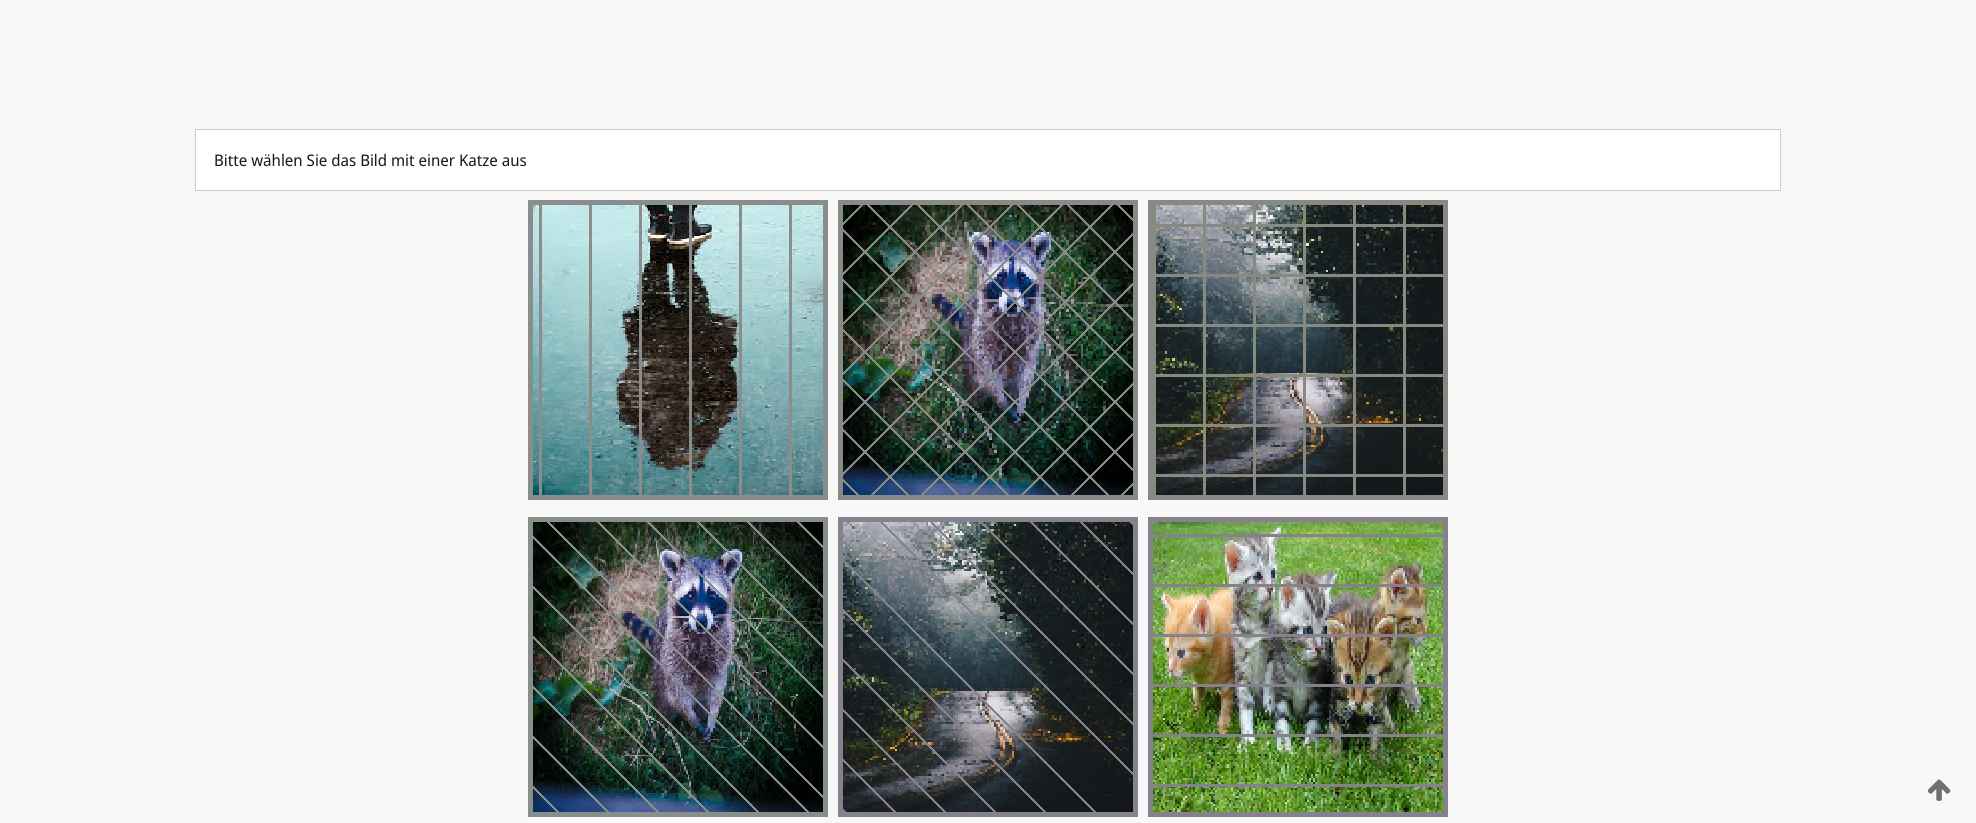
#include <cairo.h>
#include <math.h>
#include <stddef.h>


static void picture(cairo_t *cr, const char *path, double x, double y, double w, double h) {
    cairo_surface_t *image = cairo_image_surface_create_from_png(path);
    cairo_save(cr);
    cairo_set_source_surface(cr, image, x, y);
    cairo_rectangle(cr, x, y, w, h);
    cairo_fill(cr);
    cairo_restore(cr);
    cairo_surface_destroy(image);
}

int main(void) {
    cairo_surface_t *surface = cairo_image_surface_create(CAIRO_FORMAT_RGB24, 1976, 823);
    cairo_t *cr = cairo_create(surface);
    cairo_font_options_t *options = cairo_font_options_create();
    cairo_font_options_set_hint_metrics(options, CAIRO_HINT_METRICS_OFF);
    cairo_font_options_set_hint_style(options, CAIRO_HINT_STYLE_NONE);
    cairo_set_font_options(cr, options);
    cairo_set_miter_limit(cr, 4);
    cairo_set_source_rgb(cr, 0.969, 0.969, 0.969);
    cairo_paint(cr);
    cairo_set_source_rgb(cr, 1, 1, 1);
    cairo_rectangle(cr, 195.5, 129.5, 1585, 61);
    cairo_fill_preserve(cr);
    cairo_set_source_rgb(cr, 0.8, 0.8, 0.8);
    cairo_set_line_width(cr, 1);
    cairo_stroke(cr);
    cairo_select_font_face(cr, "Noto Sans Display", CAIRO_FONT_SLANT_NORMAL, CAIRO_FONT_WEIGHT_NORMAL);
    cairo_set_font_size(cr, 16);
    cairo_set_source_rgb(cr, 0.102, 0.102, 0.102);
    cairo_move_to(cr, 214, 166);
    cairo_show_text(cr, "Bitte wählen Sie das Bild mit einer Katze aus");
    picture(cr, "img1.png", 528, 200, 300, 300);
    picture(cr, "img2.png", 838, 200, 300, 300);
    picture(cr, "img3.png", 1148, 200, 300, 300);
    picture(cr, "img4.png", 528, 517, 300, 300);
    picture(cr, "img5.png", 838, 517, 300, 300);
    picture(cr, "img6.png", 1148, 517, 300, 300);
    picture(cr, "img7.png", 1927, 779, 24, 22);
    cairo_surface_write_to_png(surface, "page.png");
    cairo_font_options_destroy(options);
    cairo_destroy(cr);
    cairo_surface_destroy(surface);
    return 0;
}
